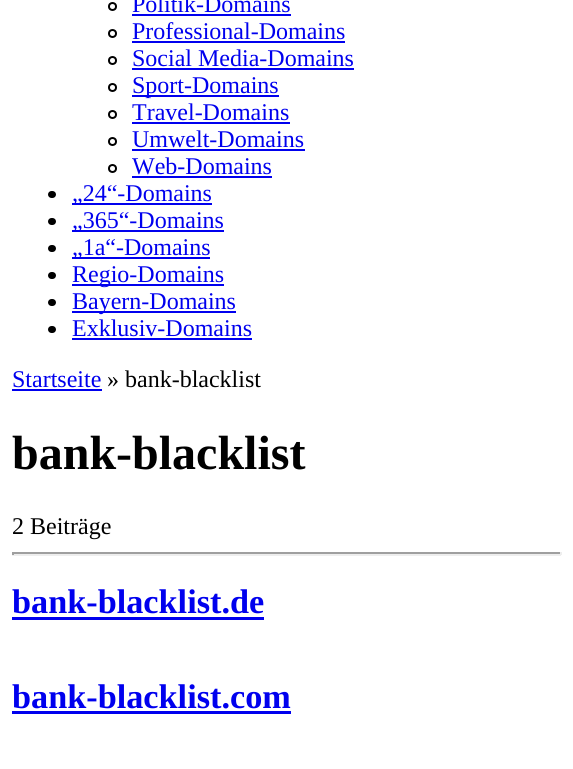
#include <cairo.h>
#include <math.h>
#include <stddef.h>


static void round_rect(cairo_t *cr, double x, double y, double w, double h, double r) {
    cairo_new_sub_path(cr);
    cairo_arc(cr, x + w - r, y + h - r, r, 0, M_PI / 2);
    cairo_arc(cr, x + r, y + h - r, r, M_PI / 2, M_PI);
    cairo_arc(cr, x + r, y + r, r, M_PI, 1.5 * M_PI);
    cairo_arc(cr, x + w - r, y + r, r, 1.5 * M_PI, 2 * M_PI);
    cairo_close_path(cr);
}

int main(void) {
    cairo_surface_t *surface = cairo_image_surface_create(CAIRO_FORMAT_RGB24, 573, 769);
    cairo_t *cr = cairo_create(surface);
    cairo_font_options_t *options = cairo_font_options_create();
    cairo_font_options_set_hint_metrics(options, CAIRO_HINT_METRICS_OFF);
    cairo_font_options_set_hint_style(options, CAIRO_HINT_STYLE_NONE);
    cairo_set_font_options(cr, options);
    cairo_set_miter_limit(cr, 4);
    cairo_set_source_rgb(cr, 1, 1, 1);
    cairo_paint(cr);
    cairo_arc(cr, 112.5, 6.5, 3.5, 0, 2 * M_PI);
    cairo_set_source_rgb(cr, 0, 0, 0);
    cairo_stroke(cr);
    cairo_select_font_face(cr, "Liberation Serif", CAIRO_FONT_SLANT_NORMAL, CAIRO_FONT_WEIGHT_NORMAL);
    cairo_set_font_size(cr, 24);
    cairo_set_source_rgb(cr, 0, 0, 0.933);
    cairo_move_to(cr, 132, 12);
    cairo_show_text(cr, "Politik-Domains");
    cairo_rectangle(cr, 132, 14, 159, 2);
    cairo_fill(cr);
    cairo_arc(cr, 112.5, 33.5, 3.5, 0, 2 * M_PI);
    cairo_set_source_rgb(cr, 0, 0, 0);
    cairo_stroke(cr);
    cairo_set_source_rgb(cr, 0, 0, 0.933);
    cairo_move_to(cr, 132, 39);
    cairo_show_text(cr, "Professional-Domains");
    cairo_rectangle(cr, 132, 41, 213, 2);
    cairo_fill(cr);
    cairo_arc(cr, 112.5, 60.5, 3.5, 0, 2 * M_PI);
    cairo_set_source_rgb(cr, 0, 0, 0);
    cairo_stroke(cr);
    cairo_set_source_rgb(cr, 0, 0, 0.933);
    cairo_move_to(cr, 132, 66);
    cairo_show_text(cr, "Social Media-Domains");
    cairo_rectangle(cr, 132, 68, 222, 2);
    cairo_fill(cr);
    cairo_arc(cr, 112.5, 87.5, 3.5, 0, 2 * M_PI);
    cairo_set_source_rgb(cr, 0, 0, 0);
    cairo_stroke(cr);
    cairo_set_source_rgb(cr, 0, 0, 0.933);
    cairo_rectangle(cr, 132, 95, 147, 2);
    cairo_fill(cr);
    cairo_move_to(cr, 132, 93);
    cairo_show_text(cr, "Sport-Domains");
    cairo_new_path(cr);
    cairo_arc(cr, 112.5, 114.5, 3.5, 0, 2 * M_PI);
    cairo_set_source_rgb(cr, 0, 0, 0);
    cairo_stroke(cr);
    cairo_set_source_rgb(cr, 0, 0, 0.933);
    cairo_move_to(cr, 132, 120);
    cairo_show_text(cr, "Travel-Domains");
    cairo_rectangle(cr, 132, 122, 158, 2);
    cairo_fill(cr);
    cairo_arc(cr, 112.5, 141.5, 3.5, 0, 2 * M_PI);
    cairo_set_source_rgb(cr, 0, 0, 0);
    cairo_stroke(cr);
    cairo_set_source_rgb(cr, 0, 0, 0.933);
    cairo_move_to(cr, 132, 147);
    cairo_show_text(cr, "Umwelt-Domains");
    cairo_rectangle(cr, 132, 149, 173, 2);
    cairo_fill(cr);
    cairo_arc(cr, 112.5, 168.5, 3.5, 0, 2 * M_PI);
    cairo_set_source_rgb(cr, 0, 0, 0);
    cairo_stroke(cr);
    cairo_set_source_rgb(cr, 0, 0, 0.933);
    cairo_move_to(cr, 132, 174);
    cairo_show_text(cr, "Web-Domains");
    cairo_rectangle(cr, 132, 176, 140, 2);
    cairo_fill(cr);
    cairo_set_source_rgb(cr, 0, 0, 0);
    round_rect(cr, 48, 191, 8, 7, 3.5);
    cairo_fill(cr);
    cairo_set_source_rgb(cr, 0, 0, 0.933);
    cairo_rectangle(cr, 72, 203, 140, 2);
    cairo_fill(cr);
    cairo_move_to(cr, 72, 201);
    cairo_show_text(cr, "„24“-Domains");
    cairo_set_source_rgb(cr, 0, 0, 0);
    round_rect(cr, 48, 218, 8, 7, 3.5);
    cairo_fill(cr);
    cairo_set_source_rgb(cr, 0, 0, 0.933);
    cairo_rectangle(cr, 72, 230, 152, 2);
    cairo_fill(cr);
    cairo_move_to(cr, 72, 228);
    cairo_show_text(cr, "„365“-Domains");
    cairo_set_source_rgb(cr, 0, 0, 0);
    round_rect(cr, 48, 245, 8, 7, 3.5);
    cairo_fill(cr);
    cairo_set_source_rgb(cr, 0, 0, 0.933);
    cairo_rectangle(cr, 72, 257, 138, 2);
    cairo_fill(cr);
    cairo_move_to(cr, 72, 255);
    cairo_show_text(cr, "„1a“-Domains");
    cairo_set_source_rgb(cr, 0, 0, 0);
    round_rect(cr, 48, 272, 8, 7, 3.5);
    cairo_fill(cr);
    cairo_set_source_rgb(cr, 0, 0, 0.933);
    cairo_rectangle(cr, 72, 284, 152, 2);
    cairo_fill(cr);
    cairo_move_to(cr, 72, 282);
    cairo_show_text(cr, "Regio-Domains");
    cairo_set_source_rgb(cr, 0, 0, 0);
    round_rect(cr, 48, 299, 8, 7, 3.5);
    cairo_fill(cr);
    cairo_set_source_rgb(cr, 0, 0, 0.933);
    cairo_rectangle(cr, 72, 311, 164, 2);
    cairo_fill(cr);
    cairo_move_to(cr, 72, 309);
    cairo_show_text(cr, "Bayern-Domains");
    cairo_set_source_rgb(cr, 0, 0, 0);
    round_rect(cr, 48, 326, 8, 7, 3.5);
    cairo_fill(cr);
    cairo_set_source_rgb(cr, 0, 0, 0.933);
    cairo_move_to(cr, 72, 336);
    cairo_show_text(cr, "Exklusiv-Domains");
    cairo_rectangle(cr, 72, 338, 180, 2);
    cairo_fill(cr);
    cairo_move_to(cr, 12, 387);
    cairo_show_text(cr, "Startseite");
    cairo_rectangle(cr, 12, 389, 90, 2);
    cairo_fill(cr);
    cairo_set_source_rgb(cr, 0, 0, 0);
    cairo_move_to(cr, 107, 387);
    cairo_show_text(cr, "» bank-blacklist");
    cairo_select_font_face(cr, "Liberation Serif", CAIRO_FONT_SLANT_NORMAL, CAIRO_FONT_WEIGHT_BOLD);
    cairo_set_font_size(cr, 48);
    cairo_move_to(cr, 12, 469);
    cairo_show_text(cr, "bank-blacklist");
    cairo_select_font_face(cr, "Liberation Serif", CAIRO_FONT_SLANT_NORMAL, CAIRO_FONT_WEIGHT_NORMAL);
    cairo_set_font_size(cr, 24);
    cairo_move_to(cr, 12, 534);
    cairo_show_text(cr, "2 Beiträge");
    cairo_set_source_rgb(cr, 0.624, 0.624, 0.624);
    cairo_rectangle(cr, 12, 552, 549, 2);
    cairo_fill(cr);
    cairo_set_source_rgb(cr, 0.933, 0.933, 0.933);
    cairo_rectangle(cr, 560, 552, 2, 3);
    cairo_fill(cr);
    cairo_rectangle(cr, 12, 554, 549, 2);
    cairo_fill(cr);
    cairo_set_source_rgb(cr, 0.624, 0.624, 0.624);
    cairo_rectangle(cr, 12, 552, 2, 3);
    cairo_fill(cr);
    cairo_select_font_face(cr, "Liberation Serif", CAIRO_FONT_SLANT_NORMAL, CAIRO_FONT_WEIGHT_BOLD);
    cairo_set_font_size(cr, 34.25);
    cairo_set_source_rgb(cr, 0, 0, 0.933);
    cairo_move_to(cr, 12, 613);
    cairo_show_text(cr, "bank-blacklist.de");
    cairo_rectangle(cr, 12, 617, 252, 3);
    cairo_fill(cr);
    cairo_move_to(cr, 12, 708);
    cairo_show_text(cr, "bank-blacklist.com");
    cairo_rectangle(cr, 12, 711, 279, 3);
    cairo_fill(cr);
    cairo_surface_write_to_png(surface, "page.png");
    cairo_font_options_destroy(options);
    cairo_destroy(cr);
    cairo_surface_destroy(surface);
    return 0;
}
